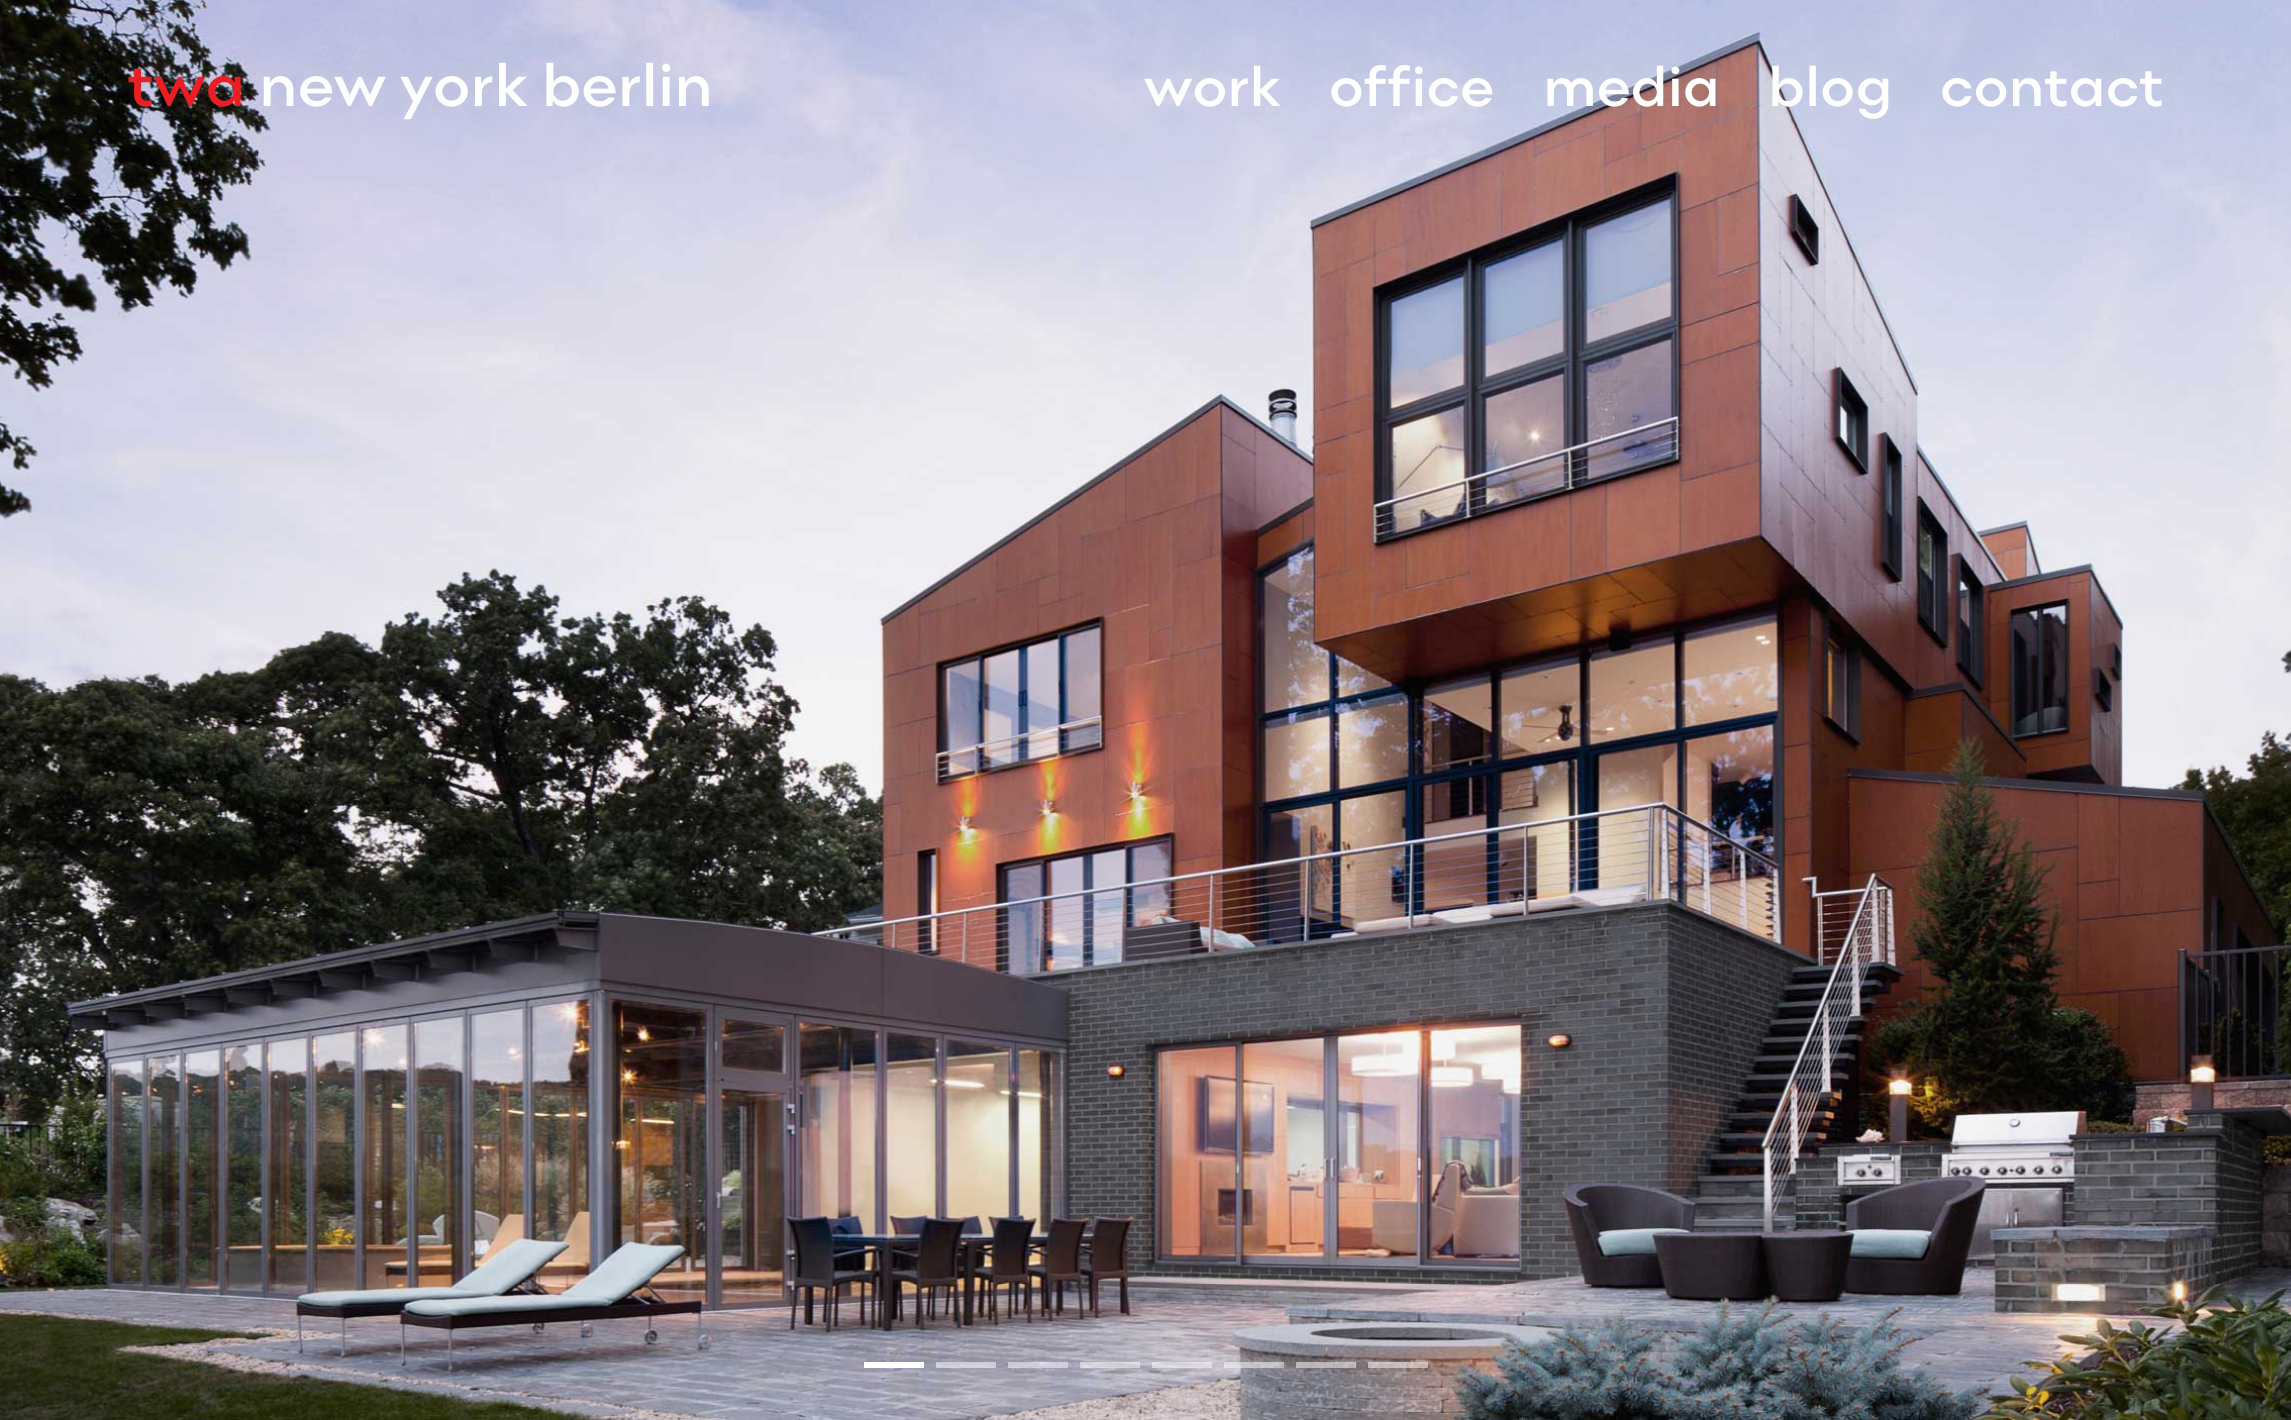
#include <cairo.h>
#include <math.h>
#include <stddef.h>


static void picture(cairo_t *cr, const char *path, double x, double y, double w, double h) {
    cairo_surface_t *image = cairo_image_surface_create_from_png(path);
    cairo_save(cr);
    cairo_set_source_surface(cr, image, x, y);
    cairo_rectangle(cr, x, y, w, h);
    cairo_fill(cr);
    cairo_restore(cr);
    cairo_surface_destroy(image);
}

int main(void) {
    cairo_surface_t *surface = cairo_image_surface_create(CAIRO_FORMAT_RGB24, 2291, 1420);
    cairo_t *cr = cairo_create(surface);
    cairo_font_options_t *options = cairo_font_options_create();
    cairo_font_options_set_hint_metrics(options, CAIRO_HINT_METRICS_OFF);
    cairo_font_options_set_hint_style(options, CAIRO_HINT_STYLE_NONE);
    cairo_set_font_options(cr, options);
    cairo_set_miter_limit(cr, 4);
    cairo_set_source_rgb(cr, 1, 1, 1);
    cairo_paint(cr);
    picture(cr, "img1.png", 0, 0, 2291, 1420);
    cairo_set_source_rgb(cr, 1, 1, 1);
    cairo_rectangle(cr, 864, 1362, 60, 6);
    cairo_fill(cr);
    cairo_set_source_rgba(cr, 1, 1, 1, 0.5);
    cairo_rectangle(cr, 936, 1362, 60, 6);
    cairo_fill(cr);
    cairo_rectangle(cr, 1008, 1362, 60, 6);
    cairo_fill(cr);
    cairo_rectangle(cr, 1080, 1362, 60, 6);
    cairo_fill(cr);
    cairo_rectangle(cr, 1152, 1362, 60, 6);
    cairo_fill(cr);
    cairo_rectangle(cr, 1224, 1362, 60, 6);
    cairo_fill(cr);
    cairo_rectangle(cr, 1296, 1362, 60, 6);
    cairo_fill(cr);
    cairo_rectangle(cr, 1368, 1362, 60, 6);
    cairo_fill(cr);
    cairo_select_font_face(cr, "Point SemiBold", CAIRO_FONT_SLANT_NORMAL, CAIRO_FONT_WEIGHT_NORMAL);
    cairo_set_font_size(cr, 60);
    cairo_set_source_rgb(cr, 0.929, 0.114, 0.141);
    cairo_move_to(cr, 128, 106);
    cairo_show_text(cr, "twa");
    cairo_set_source_rgb(cr, 1, 1, 1);
    cairo_move_to(cr, 259, 106);
    cairo_show_text(cr, "new york berlin");
    cairo_set_font_size(cr, 56);
    cairo_move_to(cr, 1144, 106);
    cairo_show_text(cr, "work");
    cairo_move_to(cr, 1329, 106);
    cairo_show_text(cr, "office");
    cairo_move_to(cr, 1543, 106);
    cairo_show_text(cr, "media");
    cairo_move_to(cr, 1768, 106);
    cairo_show_text(cr, "blog");
    cairo_move_to(cr, 1940, 106);
    cairo_show_text(cr, "contact");
    cairo_surface_write_to_png(surface, "page.png");
    cairo_font_options_destroy(options);
    cairo_destroy(cr);
    cairo_surface_destroy(surface);
    return 0;
}
